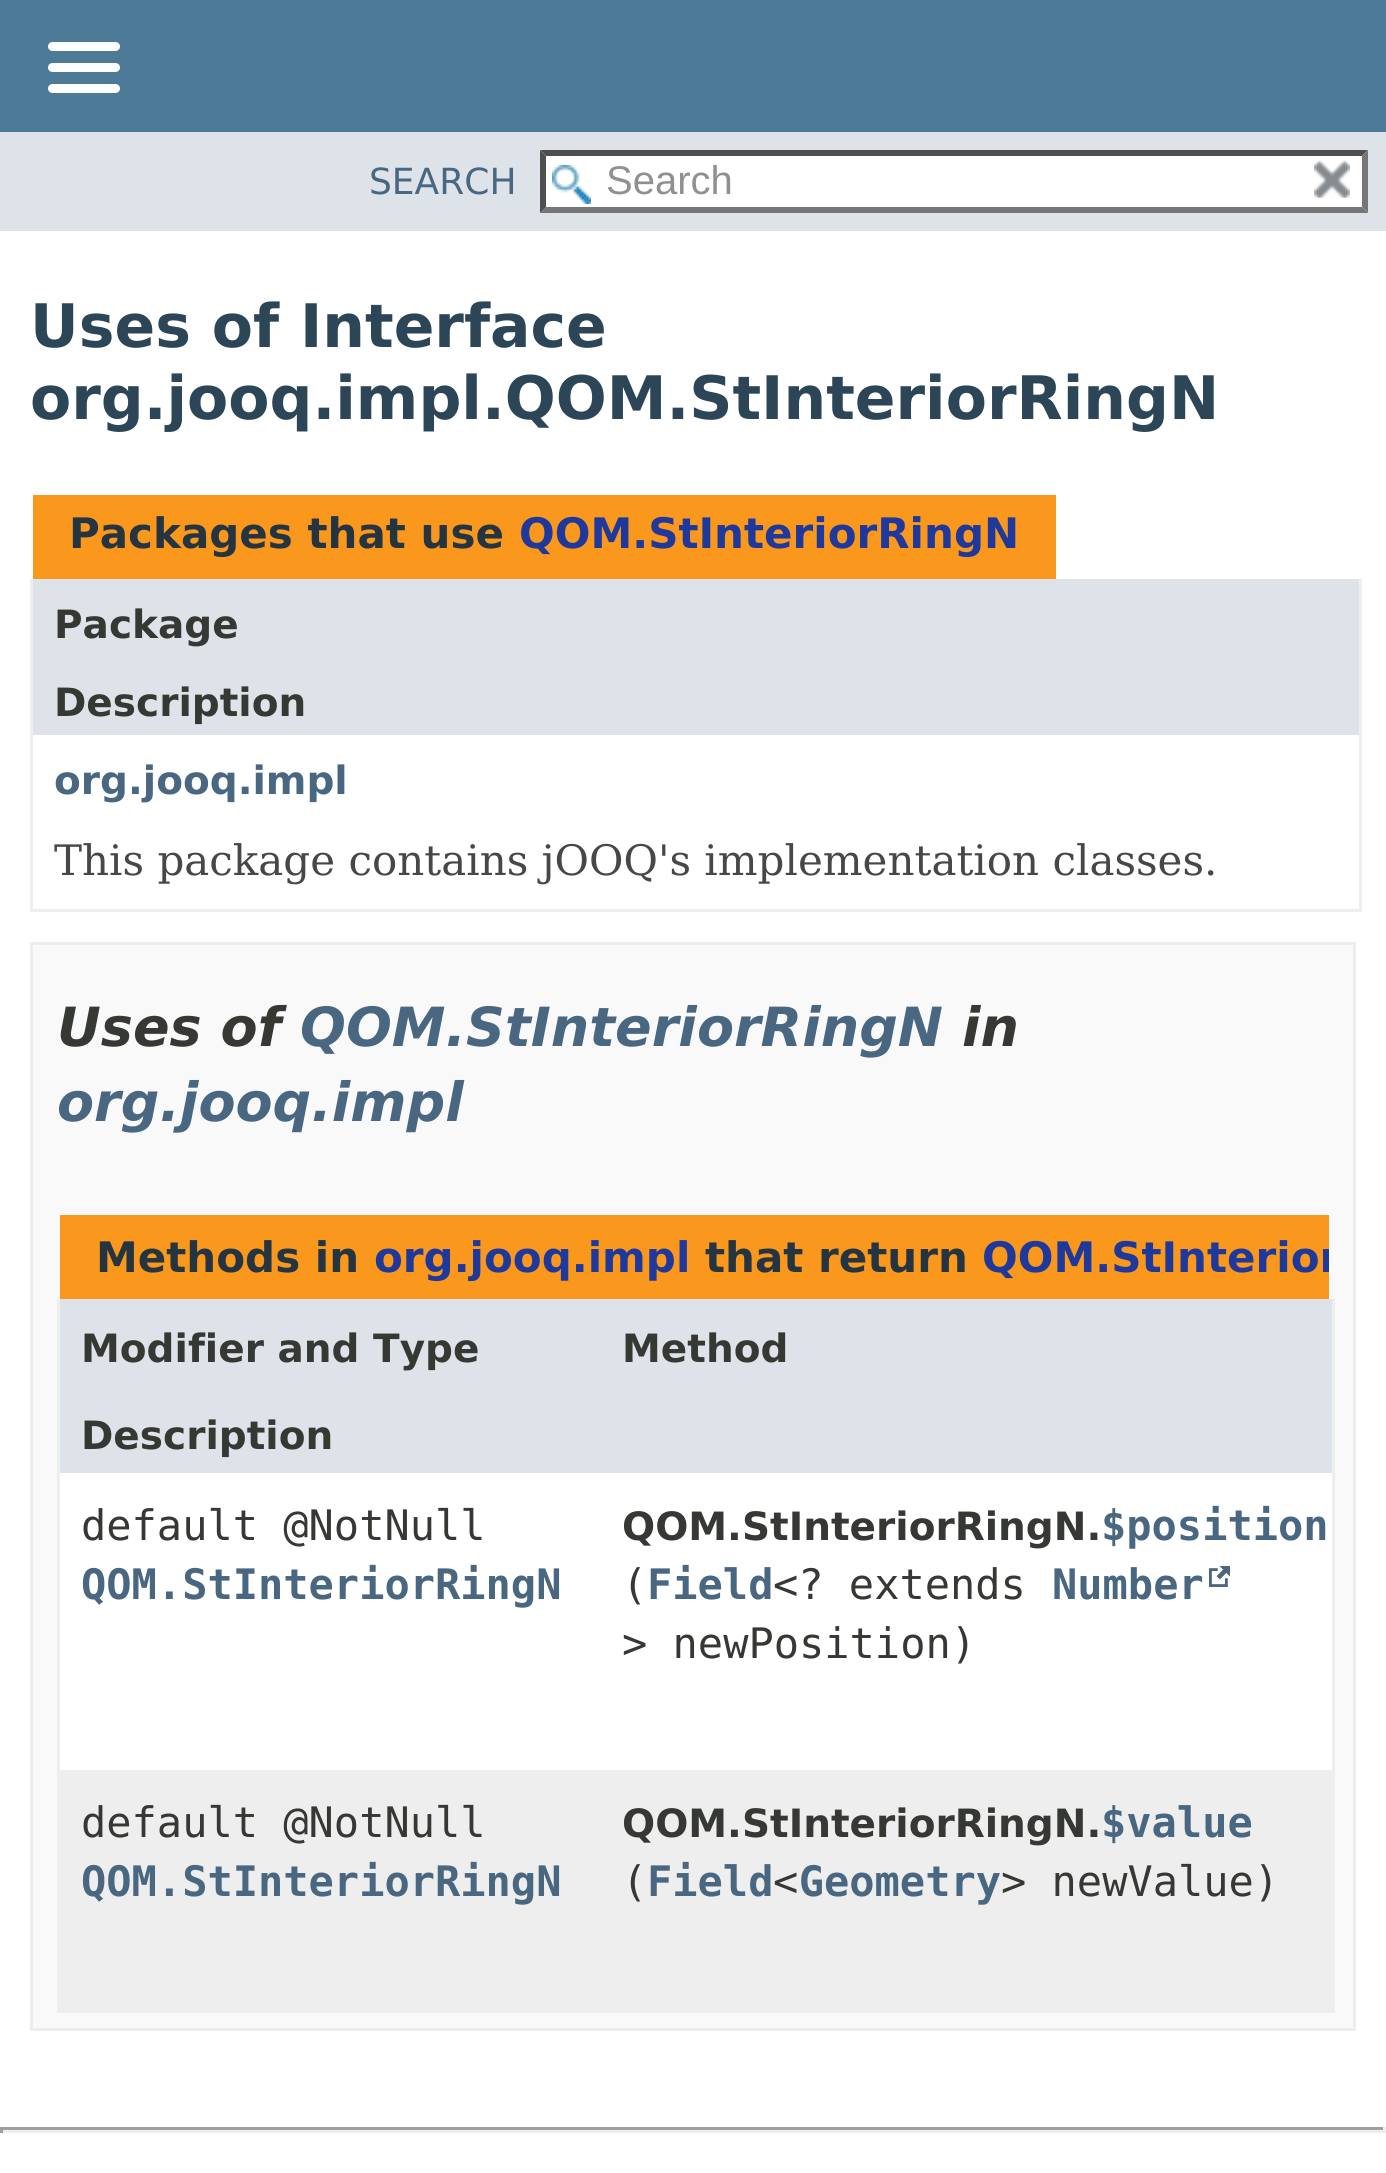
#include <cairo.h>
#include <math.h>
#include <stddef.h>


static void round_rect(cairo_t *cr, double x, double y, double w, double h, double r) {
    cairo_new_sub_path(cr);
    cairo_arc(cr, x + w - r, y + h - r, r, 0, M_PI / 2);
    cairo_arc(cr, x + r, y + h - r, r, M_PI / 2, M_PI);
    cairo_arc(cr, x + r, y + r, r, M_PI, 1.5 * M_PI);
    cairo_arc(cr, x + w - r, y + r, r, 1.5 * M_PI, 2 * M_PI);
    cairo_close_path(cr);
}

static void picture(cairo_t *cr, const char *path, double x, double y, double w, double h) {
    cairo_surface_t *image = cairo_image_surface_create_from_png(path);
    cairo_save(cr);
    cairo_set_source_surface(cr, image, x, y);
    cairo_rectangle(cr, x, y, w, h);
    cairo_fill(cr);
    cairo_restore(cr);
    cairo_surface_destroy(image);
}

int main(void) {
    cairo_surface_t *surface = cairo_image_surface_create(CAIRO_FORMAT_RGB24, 1386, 2173);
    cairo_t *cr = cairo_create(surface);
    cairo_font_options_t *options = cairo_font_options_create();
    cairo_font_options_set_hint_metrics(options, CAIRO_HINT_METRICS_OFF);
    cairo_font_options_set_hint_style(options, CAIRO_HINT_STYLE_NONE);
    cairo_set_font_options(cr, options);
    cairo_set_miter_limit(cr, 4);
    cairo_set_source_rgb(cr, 1, 1, 1);
    cairo_paint(cr);
    cairo_set_source_rgb(cr, 0.302, 0.478, 0.592);
    cairo_rectangle(cr, 0, 0, 1386, 132);
    cairo_fill(cr);
    cairo_set_source_rgb(cr, 1, 1, 1);
    round_rect(cr, 48, 42, 72, 9, 4.5);
    cairo_fill(cr);
    round_rect(cr, 48, 63, 72, 9, 4.5);
    cairo_fill(cr);
    round_rect(cr, 48, 84, 72, 9, 4.5);
    cairo_fill(cr);
    cairo_set_source_rgb(cr, 0.871, 0.89, 0.914);
    cairo_rectangle(cr, 0, 132, 1386, 99);
    cairo_fill(cr);
    cairo_select_font_face(cr, "DejaVu Sans", CAIRO_FONT_SLANT_NORMAL, CAIRO_FONT_WEIGHT_NORMAL);
    cairo_set_font_size(cr, 36);
    cairo_set_source_rgb(cr, 0.29, 0.404, 0.51);
    cairo_move_to(cr, 369, 194);
    cairo_show_text(cr, "SEARCH");
    cairo_set_source_rgb(cr, 1, 1, 1);
    cairo_rectangle(cr, 540, 150, 828, 63);
    cairo_fill(cr);
    picture(cr, "img1.png", 552, 165, 39, 39);
    cairo_set_source_rgb(cr, 0.31, 0.31, 0.31);
    cairo_new_path(cr);
    cairo_move_to(cr, 540, 150);
    cairo_line_to(cr, 1368, 150);
    cairo_line_to(cr, 1362, 156);
    cairo_line_to(cr, 546, 156);
    cairo_close_path(cr);
    cairo_fill(cr);
    cairo_set_source_rgb(cr, 0.463, 0.463, 0.463);
    cairo_new_path(cr);
    cairo_move_to(cr, 1368, 150);
    cairo_line_to(cr, 1368, 213);
    cairo_line_to(cr, 1362, 207);
    cairo_line_to(cr, 1362, 156);
    cairo_close_path(cr);
    cairo_fill(cr);
    cairo_new_path(cr);
    cairo_move_to(cr, 1368, 213);
    cairo_line_to(cr, 540, 213);
    cairo_line_to(cr, 546, 207);
    cairo_line_to(cr, 1362, 207);
    cairo_close_path(cr);
    cairo_fill(cr);
    cairo_set_source_rgb(cr, 0.31, 0.31, 0.31);
    cairo_new_path(cr);
    cairo_move_to(cr, 540, 213);
    cairo_line_to(cr, 540, 150);
    cairo_line_to(cr, 546, 156);
    cairo_line_to(cr, 546, 207);
    cairo_close_path(cr);
    cairo_fill(cr);
    cairo_select_font_face(cr, "Liberation Sans", CAIRO_FONT_SLANT_NORMAL, CAIRO_FONT_WEIGHT_NORMAL);
    cairo_set_font_size(cr, 40);
    cairo_set_source_rgb(cr, 0.565, 0.565, 0.565);
    cairo_move_to(cr, 606, 194);
    cairo_show_text(cr, "Search");
    picture(cr, "img2.png", 1314, 160, 36, 38);
    cairo_select_font_face(cr, "DejaVu Sans", CAIRO_FONT_SLANT_NORMAL, CAIRO_FONT_WEIGHT_BOLD);
    cairo_set_font_size(cr, 60);
    cairo_set_source_rgb(cr, 0.173, 0.271, 0.341);
    cairo_move_to(cr, 30, 347);
    cairo_show_text(cr, "Uses of Interface");
    cairo_move_to(cr, 30, 419);
    cairo_show_text(cr, "org.jooq.impl.QOM.StInteriorRingN");
    cairo_set_source_rgb(cr, 0.973, 0.596, 0.114);
    cairo_rectangle(cr, 33, 495, 1023, 84);
    cairo_fill(cr);
    cairo_set_font_size(cr, 42);
    cairo_set_source_rgb(cr, 0.145, 0.204, 0.255);
    cairo_move_to(cr, 69, 548);
    cairo_show_text(cr, "Packages that use");
    cairo_set_source_rgb(cr, 0.122, 0.22, 0.612);
    cairo_move_to(cr, 519, 548);
    cairo_show_text(cr, "QOM.StInteriorRingN");
    cairo_set_source_rgb(cr, 0.933, 0.933, 0.933);
    cairo_rectangle(cr, 1359, 579, 3, 333);
    cairo_fill(cr);
    cairo_rectangle(cr, 30, 909, 1332, 3);
    cairo_fill(cr);
    cairo_rectangle(cr, 30, 579, 3, 333);
    cairo_fill(cr);
    cairo_set_source_rgb(cr, 0.871, 0.89, 0.914);
    cairo_rectangle(cr, 33, 579, 1326, 156);
    cairo_fill(cr);
    cairo_set_font_size(cr, 39);
    cairo_set_source_rgb(cr, 0.208, 0.22, 0.2);
    cairo_move_to(cr, 54, 638);
    cairo_show_text(cr, "Package");
    cairo_move_to(cr, 54, 716);
    cairo_show_text(cr, "Description");
    cairo_set_source_rgb(cr, 0.29, 0.404, 0.51);
    cairo_move_to(cr, 54, 794);
    cairo_show_text(cr, "org.jooq.impl");
    cairo_select_font_face(cr, "DejaVu Serif", CAIRO_FONT_SLANT_NORMAL, CAIRO_FONT_WEIGHT_NORMAL);
    cairo_set_font_size(cr, 42);
    cairo_set_source_rgb(cr, 0.278, 0.278, 0.278);
    cairo_move_to(cr, 54, 875);
    cairo_show_text(cr, "This package contains jOOQ's implementation classes.");
    cairo_set_source_rgb(cr, 0.973, 0.973, 0.973);
    cairo_rectangle(cr, 31.5, 943.5, 1323, 1086);
    cairo_fill_preserve(cr);
    cairo_set_source_rgb(cr, 0.929, 0.929, 0.929);
    cairo_set_line_width(cr, 3);
    cairo_stroke(cr);
    cairo_select_font_face(cr, "DejaVu Sans", CAIRO_FONT_SLANT_ITALIC, CAIRO_FONT_WEIGHT_BOLD);
    cairo_set_font_size(cr, 54);
    cairo_set_source_rgb(cr, 0.208, 0.22, 0.2);
    cairo_move_to(cr, 57, 1046);
    cairo_show_text(cr, "Uses of");
    cairo_set_source_rgb(cr, 0.29, 0.404, 0.51);
    cairo_move_to(cr, 300, 1046);
    cairo_show_text(cr, "QOM.StInteriorRingN");
    cairo_set_source_rgb(cr, 0.208, 0.22, 0.2);
    cairo_move_to(cr, 962, 1046);
    cairo_show_text(cr, "in");
    cairo_set_source_rgb(cr, 0.29, 0.404, 0.51);
    cairo_move_to(cr, 57, 1121);
    cairo_show_text(cr, "org.jooq.impl");
    cairo_set_source_rgb(cr, 0.973, 0.596, 0.114);
    cairo_rectangle(cr, 60, 1215, 1269, 84);
    cairo_fill(cr);
    cairo_select_font_face(cr, "DejaVu Sans", CAIRO_FONT_SLANT_NORMAL, CAIRO_FONT_WEIGHT_BOLD);
    cairo_set_font_size(cr, 42);
    cairo_set_source_rgb(cr, 0.145, 0.204, 0.255);
    cairo_move_to(cr, 96, 1272);
    cairo_show_text(cr, "Methods in");
    cairo_set_source_rgb(cr, 0.122, 0.22, 0.612);
    cairo_move_to(cr, 374, 1272);
    cairo_show_text(cr, "org.jooq.impl");
    cairo_set_source_rgb(cr, 0.145, 0.204, 0.255);
    cairo_move_to(cr, 705, 1272);
    cairo_show_text(cr, "that return");
    cairo_save(cr);
    cairo_rectangle(cr, 57, 1185, 1272, 114);
    cairo_clip(cr);
    cairo_set_source_rgb(cr, 0.122, 0.22, 0.612);
    cairo_move_to(cr, 982, 1272);
    cairo_show_text(cr, "QOM.StInterior");
    cairo_restore(cr);
    cairo_set_source_rgb(cr, 0.933, 0.933, 0.933);
    cairo_rectangle(cr, 1332, 1299, 3, 714);
    cairo_fill(cr);
    cairo_rectangle(cr, 57, 2010, 1278, 3);
    cairo_fill(cr);
    cairo_rectangle(cr, 57, 1299, 3, 714);
    cairo_fill(cr);
    cairo_set_source_rgb(cr, 0.871, 0.89, 0.914);
    cairo_rectangle(cr, 60, 1299, 1272, 174);
    cairo_fill(cr);
    cairo_set_font_size(cr, 39);
    cairo_set_source_rgb(cr, 0.208, 0.22, 0.2);
    cairo_move_to(cr, 81, 1362);
    cairo_show_text(cr, "Modifier and Type");
    cairo_move_to(cr, 622, 1362);
    cairo_show_text(cr, "Method");
    cairo_move_to(cr, 81, 1449);
    cairo_show_text(cr, "Description");
    cairo_set_source_rgb(cr, 1, 1, 1);
    cairo_rectangle(cr, 60, 1473, 1272, 297);
    cairo_fill(cr);
    cairo_select_font_face(cr, "DejaVu Sans Mono", CAIRO_FONT_SLANT_NORMAL, CAIRO_FONT_WEIGHT_NORMAL);
    cairo_set_font_size(cr, 42);
    cairo_set_source_rgb(cr, 0.208, 0.22, 0.2);
    cairo_move_to(cr, 81, 1540);
    cairo_show_text(cr, "default @NotNull");
    cairo_select_font_face(cr, "DejaVu Sans Mono", CAIRO_FONT_SLANT_NORMAL, CAIRO_FONT_WEIGHT_BOLD);
    cairo_set_source_rgb(cr, 0.29, 0.404, 0.51);
    cairo_move_to(cr, 81, 1599);
    cairo_show_text(cr, "QOM.StInteriorRingN");
    cairo_move_to(cr, 1101, 1540);
    cairo_show_text(cr, "$position");
    cairo_select_font_face(cr, "DejaVu Sans Mono", CAIRO_FONT_SLANT_NORMAL, CAIRO_FONT_WEIGHT_NORMAL);
    cairo_set_source_rgb(cr, 0.208, 0.22, 0.2);
    cairo_move_to(cr, 622, 1599);
    cairo_show_text(cr, "(");
    cairo_select_font_face(cr, "DejaVu Sans Mono", CAIRO_FONT_SLANT_NORMAL, CAIRO_FONT_WEIGHT_BOLD);
    cairo_set_source_rgb(cr, 0.29, 0.404, 0.51);
    cairo_move_to(cr, 647, 1599);
    cairo_show_text(cr, "Field");
    cairo_select_font_face(cr, "DejaVu Sans Mono", CAIRO_FONT_SLANT_NORMAL, CAIRO_FONT_WEIGHT_NORMAL);
    cairo_set_source_rgb(cr, 0.208, 0.22, 0.2);
    cairo_move_to(cr, 773, 1599);
    cairo_show_text(cr, "<? extends");
    cairo_select_font_face(cr, "DejaVu Sans Mono", CAIRO_FONT_SLANT_NORMAL, CAIRO_FONT_WEIGHT_BOLD);
    cairo_set_source_rgb(cr, 0.29, 0.404, 0.51);
    cairo_move_to(cr, 1052, 1599);
    cairo_show_text(cr, "Number");
    picture(cr, "img3.png", 1209, 1566, 21, 21);
    cairo_select_font_face(cr, "DejaVu Sans Mono", CAIRO_FONT_SLANT_NORMAL, CAIRO_FONT_WEIGHT_NORMAL);
    cairo_set_source_rgb(cr, 0.208, 0.22, 0.2);
    cairo_move_to(cr, 622, 1658);
    cairo_show_text(cr, "> newPosition)");
    cairo_select_font_face(cr, "DejaVu Sans", CAIRO_FONT_SLANT_NORMAL, CAIRO_FONT_WEIGHT_BOLD);
    cairo_set_font_size(cr, 39);
    cairo_move_to(cr, 622, 1540);
    cairo_show_text(cr, "QOM.StInteriorRingN.");
    cairo_set_source_rgb(cr, 0.933, 0.933, 0.937);
    cairo_rectangle(cr, 60, 1770, 1272, 240);
    cairo_fill(cr);
    cairo_select_font_face(cr, "DejaVu Sans Mono", CAIRO_FONT_SLANT_NORMAL, CAIRO_FONT_WEIGHT_NORMAL);
    cairo_set_font_size(cr, 42);
    cairo_set_source_rgb(cr, 0.208, 0.22, 0.2);
    cairo_move_to(cr, 81, 1837);
    cairo_show_text(cr, "default @NotNull");
    cairo_select_font_face(cr, "DejaVu Sans Mono", CAIRO_FONT_SLANT_NORMAL, CAIRO_FONT_WEIGHT_BOLD);
    cairo_set_source_rgb(cr, 0.29, 0.404, 0.51);
    cairo_move_to(cr, 81, 1896);
    cairo_show_text(cr, "QOM.StInteriorRingN");
    cairo_select_font_face(cr, "DejaVu Sans", CAIRO_FONT_SLANT_NORMAL, CAIRO_FONT_WEIGHT_BOLD);
    cairo_set_font_size(cr, 39);
    cairo_set_source_rgb(cr, 0.208, 0.22, 0.2);
    cairo_move_to(cr, 622, 1837);
    cairo_show_text(cr, "QOM.StInteriorRingN.");
    cairo_select_font_face(cr, "DejaVu Sans Mono", CAIRO_FONT_SLANT_NORMAL, CAIRO_FONT_WEIGHT_BOLD);
    cairo_set_font_size(cr, 42);
    cairo_set_source_rgb(cr, 0.29, 0.404, 0.51);
    cairo_move_to(cr, 1101, 1837);
    cairo_show_text(cr, "$value");
    cairo_select_font_face(cr, "DejaVu Sans Mono", CAIRO_FONT_SLANT_NORMAL, CAIRO_FONT_WEIGHT_NORMAL);
    cairo_set_source_rgb(cr, 0.208, 0.22, 0.2);
    cairo_move_to(cr, 622, 1896);
    cairo_show_text(cr, "(");
    cairo_select_font_face(cr, "DejaVu Sans Mono", CAIRO_FONT_SLANT_NORMAL, CAIRO_FONT_WEIGHT_BOLD);
    cairo_set_source_rgb(cr, 0.29, 0.404, 0.51);
    cairo_move_to(cr, 647, 1896);
    cairo_show_text(cr, "Field Geometry");
    cairo_select_font_face(cr, "DejaVu Sans Mono", CAIRO_FONT_SLANT_NORMAL, CAIRO_FONT_WEIGHT_NORMAL);
    cairo_set_source_rgb(cr, 0.208, 0.22, 0.2);
    cairo_move_to(cr, 1001, 1896);
    cairo_show_text(cr, "> newValue)");
    cairo_move_to(cr, 773, 1896);
    cairo_show_text(cr, "<");
    cairo_set_source_rgb(cr, 0.624, 0.624, 0.624);
    cairo_rectangle(cr, 0, 2127, 1386, 3);
    cairo_fill(cr);
    cairo_set_source_rgb(cr, 0.933, 0.933, 0.933);
    cairo_rectangle(cr, 1383, 2127, 3, 6);
    cairo_fill(cr);
    cairo_rectangle(cr, 0, 2130, 1386, 3);
    cairo_fill(cr);
    cairo_set_source_rgb(cr, 0.624, 0.624, 0.624);
    cairo_rectangle(cr, 0, 2127, 3, 6);
    cairo_fill(cr);
    cairo_surface_write_to_png(surface, "page.png");
    cairo_font_options_destroy(options);
    cairo_destroy(cr);
    cairo_surface_destroy(surface);
    return 0;
}
